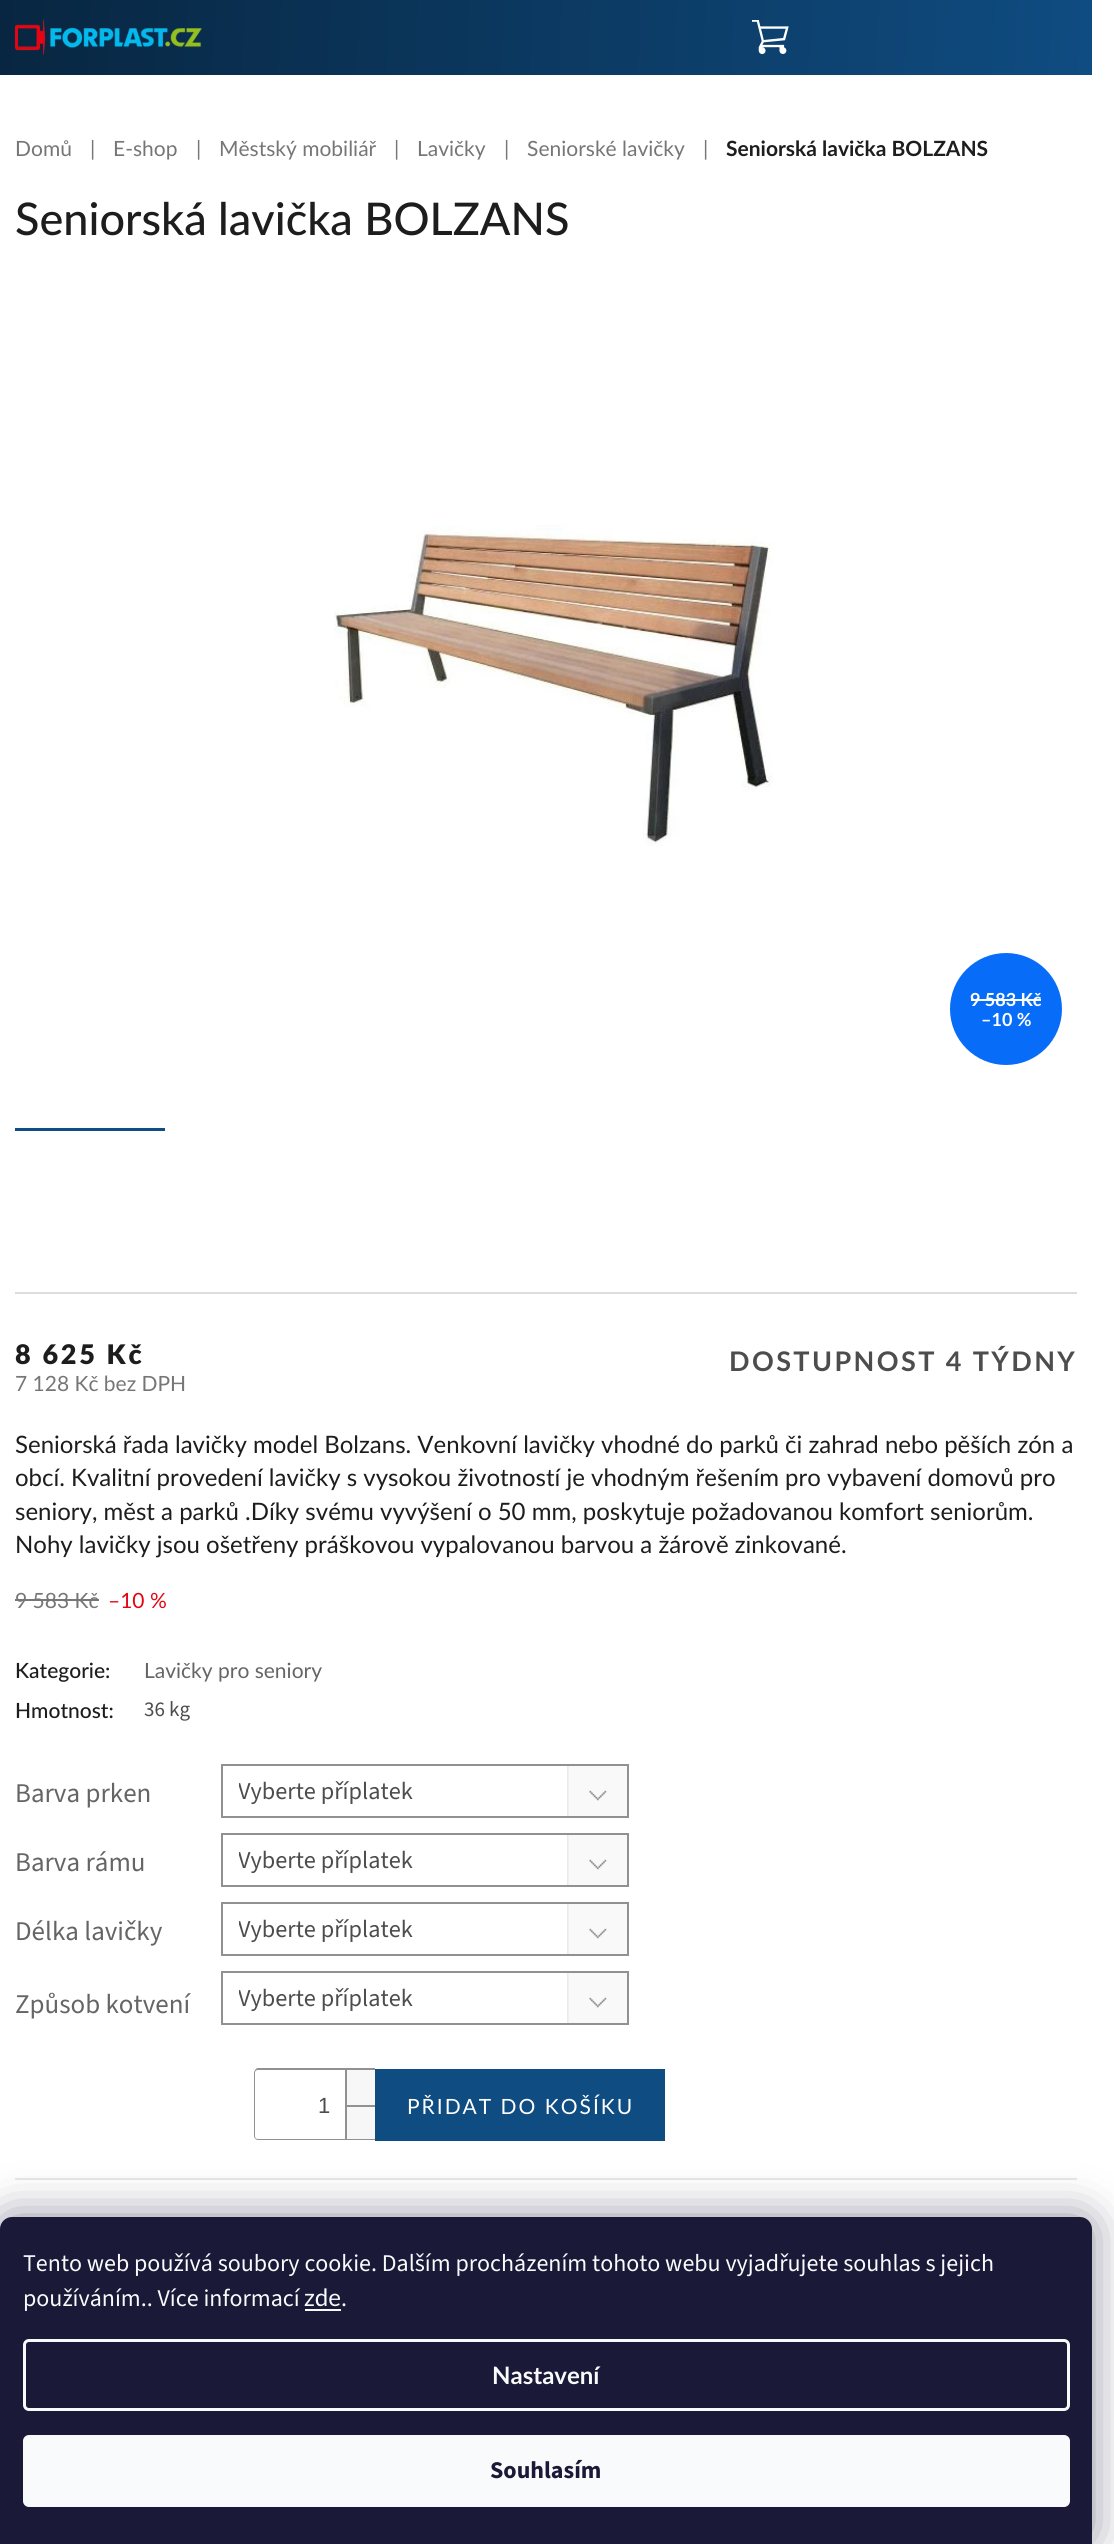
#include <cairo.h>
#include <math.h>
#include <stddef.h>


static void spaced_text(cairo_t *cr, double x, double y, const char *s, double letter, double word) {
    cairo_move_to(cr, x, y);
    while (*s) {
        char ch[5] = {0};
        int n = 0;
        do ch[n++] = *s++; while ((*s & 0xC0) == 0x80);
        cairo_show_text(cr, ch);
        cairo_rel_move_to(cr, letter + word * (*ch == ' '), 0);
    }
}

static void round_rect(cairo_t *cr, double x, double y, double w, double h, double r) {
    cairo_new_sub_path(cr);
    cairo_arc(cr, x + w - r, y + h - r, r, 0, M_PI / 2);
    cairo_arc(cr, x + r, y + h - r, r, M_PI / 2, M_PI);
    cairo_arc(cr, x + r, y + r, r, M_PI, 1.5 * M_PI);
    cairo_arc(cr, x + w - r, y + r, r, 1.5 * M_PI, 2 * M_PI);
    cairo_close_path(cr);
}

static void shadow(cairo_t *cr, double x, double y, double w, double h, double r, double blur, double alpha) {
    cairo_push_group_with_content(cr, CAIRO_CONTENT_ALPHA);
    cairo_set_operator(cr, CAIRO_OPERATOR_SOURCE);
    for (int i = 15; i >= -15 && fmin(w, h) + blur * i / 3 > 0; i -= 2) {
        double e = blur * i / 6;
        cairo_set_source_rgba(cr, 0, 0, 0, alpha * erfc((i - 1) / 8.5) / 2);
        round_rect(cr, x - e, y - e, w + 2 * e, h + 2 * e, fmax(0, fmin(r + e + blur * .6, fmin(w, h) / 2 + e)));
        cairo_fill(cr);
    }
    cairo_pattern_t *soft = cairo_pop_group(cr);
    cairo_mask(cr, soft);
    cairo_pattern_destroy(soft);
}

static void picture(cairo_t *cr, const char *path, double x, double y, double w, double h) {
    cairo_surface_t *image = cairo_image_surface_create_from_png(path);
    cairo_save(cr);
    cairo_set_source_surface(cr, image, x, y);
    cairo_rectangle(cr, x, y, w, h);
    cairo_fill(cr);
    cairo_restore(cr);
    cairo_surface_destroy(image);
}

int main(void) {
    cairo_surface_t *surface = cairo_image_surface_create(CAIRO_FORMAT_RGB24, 1114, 2544);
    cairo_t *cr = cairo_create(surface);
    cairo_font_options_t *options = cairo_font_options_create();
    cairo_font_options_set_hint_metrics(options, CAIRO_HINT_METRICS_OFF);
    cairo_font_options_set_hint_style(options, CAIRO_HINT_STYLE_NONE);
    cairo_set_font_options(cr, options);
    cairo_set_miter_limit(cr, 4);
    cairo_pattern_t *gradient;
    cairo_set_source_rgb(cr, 1, 1, 1);
    cairo_paint(cr);
    gradient = cairo_pattern_create_linear(-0.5, 9, 1092, 66);
    cairo_pattern_add_color_stop_rgba(gradient, 0, 0.031, 0.149, 0.255, 1);
    cairo_pattern_add_color_stop_rgba(gradient, 1, 0.059, 0.298, 0.506, 1);
    cairo_set_source(cr, gradient);
    cairo_pattern_destroy(gradient);
    cairo_rectangle(cr, 0, 0, 1092, 75);
    cairo_fill(cr);
    picture(cr, "img1.png", 15, 19, 187, 37);
    picture(cr, "img2.png", 752, 20, 37, 35);
    cairo_select_font_face(cr, "Lato", CAIRO_FONT_SLANT_NORMAL, CAIRO_FONT_WEIGHT_NORMAL);
    cairo_set_font_size(cr, 21);
    cairo_set_source_rgb(cr, 0.463, 0.463, 0.463);
    cairo_move_to(cr, 15, 156);
    cairo_show_text(cr, "Domů");
    cairo_move_to(cr, 90, 156);
    cairo_show_text(cr, "|");
    cairo_move_to(cr, 113, 156);
    cairo_show_text(cr, "E-shop");
    cairo_move_to(cr, 196, 156);
    cairo_show_text(cr, "|");
    cairo_move_to(cr, 219, 156);
    cairo_show_text(cr, "Městský mobiliář");
    cairo_move_to(cr, 394, 156);
    cairo_show_text(cr, "|");
    cairo_move_to(cr, 417, 156);
    cairo_show_text(cr, "Lavičky");
    cairo_move_to(cr, 504, 156);
    cairo_show_text(cr, "|");
    cairo_move_to(cr, 527, 156);
    cairo_show_text(cr, "Seniorské lavičky");
    cairo_move_to(cr, 703, 156);
    cairo_show_text(cr, "|");
    cairo_select_font_face(cr, "Lato", CAIRO_FONT_SLANT_NORMAL, CAIRO_FONT_WEIGHT_BOLD);
    cairo_set_source_rgb(cr, 0.114, 0.114, 0.114);
    cairo_move_to(cr, 726, 156);
    cairo_show_text(cr, "Seniorská lavička BOLZANS");
    cairo_select_font_face(cr, "Lato Medium", CAIRO_FONT_SLANT_NORMAL, CAIRO_FONT_WEIGHT_NORMAL);
    cairo_set_font_size(cr, 45);
    cairo_move_to(cr, 15, 235);
    cairo_show_text(cr, "Seniorská lavička BOLZANS");
    picture(cr, "img3.png", 334, 525, 440, 321);
    cairo_set_source_rgb(cr, 0.031, 0.427, 0.969);
    cairo_arc(cr, 1006, 1009, 56, 0, 2 * M_PI);
    cairo_fill(cr);
    cairo_select_font_face(cr, "Lato", CAIRO_FONT_SLANT_NORMAL, CAIRO_FONT_WEIGHT_BOLD);
    cairo_set_font_size(cr, 18);
    cairo_set_source_rgb(cr, 1, 1, 1);
    cairo_move_to(cr, 970, 1006);
    cairo_show_text(cr, "9 583 Kč");
    cairo_rectangle(cr, 971, 999, 70, 2);
    cairo_fill(cr);
    cairo_move_to(cr, 981, 1026);
    cairo_show_text(cr, "–10 %");
    cairo_set_source_rgb(cr, 0.059, 0.298, 0.506);
    cairo_rectangle(cr, 15, 1128, 150, 3);
    cairo_fill(cr);
    cairo_set_source_rgb(cr, 0.867, 0.867, 0.867);
    cairo_rectangle(cr, 15, 1292, 1062, 2);
    cairo_fill(cr);
    cairo_select_font_face(cr, "Lato Black", CAIRO_FONT_SLANT_NORMAL, CAIRO_FONT_WEIGHT_NORMAL);
    cairo_set_font_size(cr, 27);
    cairo_set_source_rgb(cr, 0.114, 0.114, 0.114);
    spaced_text(cr, 15, 1364, "8 625 Kč", 2.75, 0);
    cairo_select_font_face(cr, "Lato", CAIRO_FONT_SLANT_NORMAL, CAIRO_FONT_WEIGHT_NORMAL);
    cairo_set_font_size(cr, 21);
    cairo_set_source_rgb(cr, 0.463, 0.463, 0.463);
    cairo_move_to(cr, 15, 1391);
    cairo_show_text(cr, "7 128 Kč bez DPH");
    cairo_select_font_face(cr, "Lato", CAIRO_FONT_SLANT_NORMAL, CAIRO_FONT_WEIGHT_BOLD);
    cairo_set_font_size(cr, 27);
    cairo_set_source_rgb(cr, 0.302, 0.302, 0.302);
    spaced_text(cr, 729, 1371, "DOSTUPNOST 4 TÝDNY", 2.4, 0);
    cairo_select_font_face(cr, "Lato", CAIRO_FONT_SLANT_NORMAL, CAIRO_FONT_WEIGHT_NORMAL);
    cairo_set_font_size(cr, 24);
    cairo_set_source_rgb(cr, 0.114, 0.114, 0.114);
    cairo_move_to(cr, 15, 1453);
    cairo_show_text(cr, "Seniorská řada lavičky model Bolzans. Venkovní lavičky vhodné do parků či zahrad nebo pěších zón a");
    cairo_move_to(cr, 15, 1486);
    cairo_show_text(cr, "obcí. Kvalitní provedení lavičky s vysokou životností je vhodným řešením pro vybavení domovů pro");
    cairo_move_to(cr, 15, 1520);
    cairo_show_text(cr, "seniory, měst a parků .Díky svému vyvýšení o 50 mm, poskytuje požadovanou komfort seniorům.");
    cairo_move_to(cr, 15, 1553);
    cairo_show_text(cr, "Nohy lavičky jsou ošetřeny práškovou vypalovanou barvou a žárově zinkované.");
    cairo_set_font_size(cr, 21);
    cairo_set_source_rgb(cr, 0.463, 0.463, 0.463);
    cairo_move_to(cr, 15, 1608);
    cairo_show_text(cr, "9 583 Kč");
    cairo_rectangle(cr, 15, 1599, 84, 2);
    cairo_fill(cr);
    cairo_set_source_rgb(cr, 0.886, 0.024, 0.075);
    cairo_move_to(cr, 108, 1608);
    cairo_show_text(cr, "–10 %");
    cairo_select_font_face(cr, "Lato Medium", CAIRO_FONT_SLANT_NORMAL, CAIRO_FONT_WEIGHT_NORMAL);
    cairo_set_source_rgb(cr, 0.114, 0.114, 0.114);
    cairo_move_to(cr, 15, 1678);
    cairo_show_text(cr, "Kategorie:");
    cairo_select_font_face(cr, "Lato", CAIRO_FONT_SLANT_NORMAL, CAIRO_FONT_WEIGHT_NORMAL);
    cairo_set_source_rgb(cr, 0.396, 0.396, 0.396);
    cairo_move_to(cr, 144, 1678);
    cairo_show_text(cr, "Lavičky pro seniory");
    cairo_select_font_face(cr, "Lato Medium", CAIRO_FONT_SLANT_NORMAL, CAIRO_FONT_WEIGHT_NORMAL);
    cairo_set_source_rgb(cr, 0.114, 0.114, 0.114);
    cairo_move_to(cr, 15, 1718);
    cairo_show_text(cr, "Hmotnost:");
    cairo_select_font_face(cr, "Source Sans 3", CAIRO_FONT_SLANT_NORMAL, CAIRO_FONT_WEIGHT_NORMAL);
    cairo_set_source_rgb(cr, 0.302, 0.302, 0.302);
    cairo_move_to(cr, 144, 1716);
    cairo_show_text(cr, "36 kg");
    cairo_set_font_size(cr, 27);
    cairo_set_source_rgb(cr, 0.396, 0.396, 0.396);
    cairo_move_to(cr, 15, 1802);
    cairo_show_text(cr, "Barva prken");
    picture(cr, "img4.png", 567, 1766, 60, 50);
    cairo_rectangle(cr, 222, 1765, 406, 52);
    cairo_set_source_rgb(cr, 0.569, 0.569, 0.569);
    cairo_stroke(cr);
    cairo_save(cr);
    cairo_rectangle(cr, 239, 1775, 321, 33);
    cairo_clip(cr);
    cairo_set_font_size(cr, 24.25);
    cairo_set_source_rgb(cr, 0.302, 0.302, 0.302);
    cairo_move_to(cr, 238, 1799);
    cairo_show_text(cr, "Vyberte příplatek");
    cairo_restore(cr);
    cairo_set_source_rgb(cr, 0.396, 0.396, 0.396);
    cairo_move_to(cr, 15, 1871);
    cairo_show_text(cr, "Barva rámu");
    picture(cr, "img4.png", 567, 1835, 60, 50);
    cairo_rectangle(cr, 222, 1834, 406, 52);
    cairo_set_source_rgb(cr, 0.569, 0.569, 0.569);
    cairo_stroke(cr);
    cairo_save(cr);
    cairo_rectangle(cr, 239, 1844, 321, 33);
    cairo_clip(cr);
    cairo_set_font_size(cr, 24.25);
    cairo_set_source_rgb(cr, 0.302, 0.302, 0.302);
    cairo_move_to(cr, 238, 1868);
    cairo_show_text(cr, "Vyberte příplatek");
    cairo_restore(cr);
    cairo_set_source_rgb(cr, 0.396, 0.396, 0.396);
    cairo_move_to(cr, 15, 1940);
    cairo_show_text(cr, "Délka lavičky");
    picture(cr, "img4.png", 567, 1904, 60, 50);
    cairo_rectangle(cr, 222, 1903, 406, 52);
    cairo_set_source_rgb(cr, 0.569, 0.569, 0.569);
    cairo_stroke(cr);
    cairo_save(cr);
    cairo_rectangle(cr, 239, 1913, 321, 33);
    cairo_clip(cr);
    cairo_set_font_size(cr, 24.25);
    cairo_set_source_rgb(cr, 0.302, 0.302, 0.302);
    cairo_move_to(cr, 238, 1937);
    cairo_show_text(cr, "Vyberte příplatek");
    cairo_restore(cr);
    cairo_set_source_rgb(cr, 0.396, 0.396, 0.396);
    cairo_move_to(cr, 15, 2013);
    cairo_show_text(cr, "Způsob kotvení");
    picture(cr, "img4.png", 567, 1973, 60, 50);
    cairo_rectangle(cr, 222, 1972, 406, 52);
    cairo_set_source_rgb(cr, 0.569, 0.569, 0.569);
    cairo_stroke(cr);
    cairo_save(cr);
    cairo_rectangle(cr, 239, 1982, 321, 33);
    cairo_clip(cr);
    cairo_set_font_size(cr, 24.25);
    cairo_set_source_rgb(cr, 0.302, 0.302, 0.302);
    cairo_move_to(cr, 238, 2006);
    cairo_show_text(cr, "Vyberte příplatek");
    cairo_restore(cr);
    cairo_set_fill_rule(cr, CAIRO_FILL_RULE_EVEN_ODD);
    cairo_new_path(cr);
    cairo_move_to(cr, 258, 2068);
    cairo_line_to(cr, 375, 2068);
    cairo_line_to(cr, 375, 2140);
    cairo_line_to(cr, 258, 2140);
    cairo_curve_to(cr, 256, 2140, 254, 2138, 254, 2136);
    cairo_line_to(cr, 254, 2073);
    cairo_curve_to(cr, 254, 2071, 256, 2068, 258, 2068);
    cairo_close_path(cr);
    cairo_move_to(cr, 258, 2070);
    cairo_line_to(cr, 375, 2070);
    cairo_line_to(cr, 375, 2139);
    cairo_line_to(cr, 258, 2139);
    cairo_curve_to(cr, 256, 2139, 255, 2138, 255, 2136);
    cairo_line_to(cr, 255, 2073);
    cairo_curve_to(cr, 255, 2071, 256, 2070, 258, 2070);
    cairo_close_path(cr);
    cairo_fill(cr);
    cairo_select_font_face(cr, "Liberation Sans", CAIRO_FONT_SLANT_NORMAL, CAIRO_FONT_WEIGHT_NORMAL);
    cairo_set_font_size(cr, 22);
    cairo_set_source_rgb(cr, 0.302, 0.302, 0.302);
    cairo_move_to(cr, 318, 2113);
    cairo_show_text(cr, "1");
    cairo_set_source_rgb(cr, 0.965, 0.965, 0.965);
    cairo_rectangle(cr, 347, 2070, 28, 35);
    cairo_fill(cr);
    cairo_set_source_rgb(cr, 0.569, 0.569, 0.569);
    cairo_rectangle(cr, 345, 2070, 2, 35);
    cairo_fill(cr);
    cairo_set_source_rgb(cr, 0.965, 0.965, 0.965);
    cairo_rectangle(cr, 347, 2107, 28, 32);
    cairo_fill(cr);
    cairo_set_source_rgb(cr, 0.569, 0.569, 0.569);
    cairo_rectangle(cr, 345, 2105, 30, 2);
    cairo_fill(cr);
    cairo_rectangle(cr, 345, 2105, 2, 34);
    cairo_fill(cr);
    cairo_set_source_rgb(cr, 0.059, 0.298, 0.506);
    cairo_rectangle(cr, 375, 2069, 290, 72);
    cairo_fill(cr);
    cairo_select_font_face(cr, "Lato", CAIRO_FONT_SLANT_NORMAL, CAIRO_FONT_WEIGHT_NORMAL);
    cairo_set_font_size(cr, 21);
    cairo_set_source_rgb(cr, 1, 1, 1);
    spaced_text(cr, 407, 2114, "PŘIDAT DO KOŠÍKU", 2, 0);
    cairo_set_source_rgb(cr, 0.906, 0.906, 0.906);
    cairo_rectangle(cr, 15, 2178, 1062, 2);
    cairo_fill(cr);
    cairo_set_source_rgb(cr, 0.106, 0.098, 0.224);
    shadow(cr, 0, 2217, 1092, 327, 12, 22.5, 0.5);
    cairo_set_source_rgb(cr, 0.102, 0.098, 0.216);
    cairo_new_path(cr);
    cairo_move_to(cr, 12, 2217);
    cairo_line_to(cr, 1080, 2217);
    cairo_curve_to(cr, 1086.5, 2217, 1092, 2222.5, 1092, 2229);
    cairo_line_to(cr, 1092, 2544);
    cairo_line_to(cr, 0, 2544);
    cairo_line_to(cr, 0, 2229);
    cairo_curve_to(cr, 0, 2222.5, 5.5, 2217, 12, 2217);
    cairo_close_path(cr);
    cairo_fill(cr);
    cairo_select_font_face(cr, "Source Sans 3", CAIRO_FONT_SLANT_NORMAL, CAIRO_FONT_WEIGHT_NORMAL);
    cairo_set_font_size(cr, 24);
    cairo_set_source_rgb(cr, 0.973, 0.98, 0.984);
    cairo_move_to(cr, 23, 2271);
    cairo_show_text(cr, "Tento web používá soubory cookie. Dalším procházením tohoto webu vyjadřujete souhlas s jejich");
    cairo_move_to(cr, 23, 2306);
    cairo_show_text(cr, "používáním.. Více informací");
    cairo_select_font_face(cr, "Lato", CAIRO_FONT_SLANT_NORMAL, CAIRO_FONT_WEIGHT_NORMAL);
    cairo_move_to(cr, 304, 2306);
    cairo_show_text(cr, "zde");
    cairo_rectangle(cr, 305, 2309, 36, 2);
    cairo_fill(cr);
    cairo_select_font_face(cr, "Source Sans 3", CAIRO_FONT_SLANT_NORMAL, CAIRO_FONT_WEIGHT_NORMAL);
    cairo_move_to(cr, 341, 2306);
    cairo_show_text(cr, ".");
    round_rect(cr, 24.5, 2340.5, 1044, 69, 4.5);
    cairo_set_line_width(cr, 3);
    cairo_stroke(cr);
    cairo_select_font_face(cr, "Lato", CAIRO_FONT_SLANT_NORMAL, CAIRO_FONT_WEIGHT_BOLD);
    cairo_move_to(cr, 492, 2384);
    cairo_show_text(cr, "Nastavení");
    round_rect(cr, 23, 2435, 1047, 72, 6);
    cairo_fill(cr);
    cairo_select_font_face(cr, "Source Sans 3", CAIRO_FONT_SLANT_NORMAL, CAIRO_FONT_WEIGHT_BOLD);
    cairo_set_source_rgb(cr, 0.102, 0.098, 0.216);
    cairo_move_to(cr, 490, 2478);
    cairo_show_text(cr, "Souhlasím");
    cairo_surface_write_to_png(surface, "page.png");
    cairo_font_options_destroy(options);
    cairo_destroy(cr);
    cairo_surface_destroy(surface);
    return 0;
}
